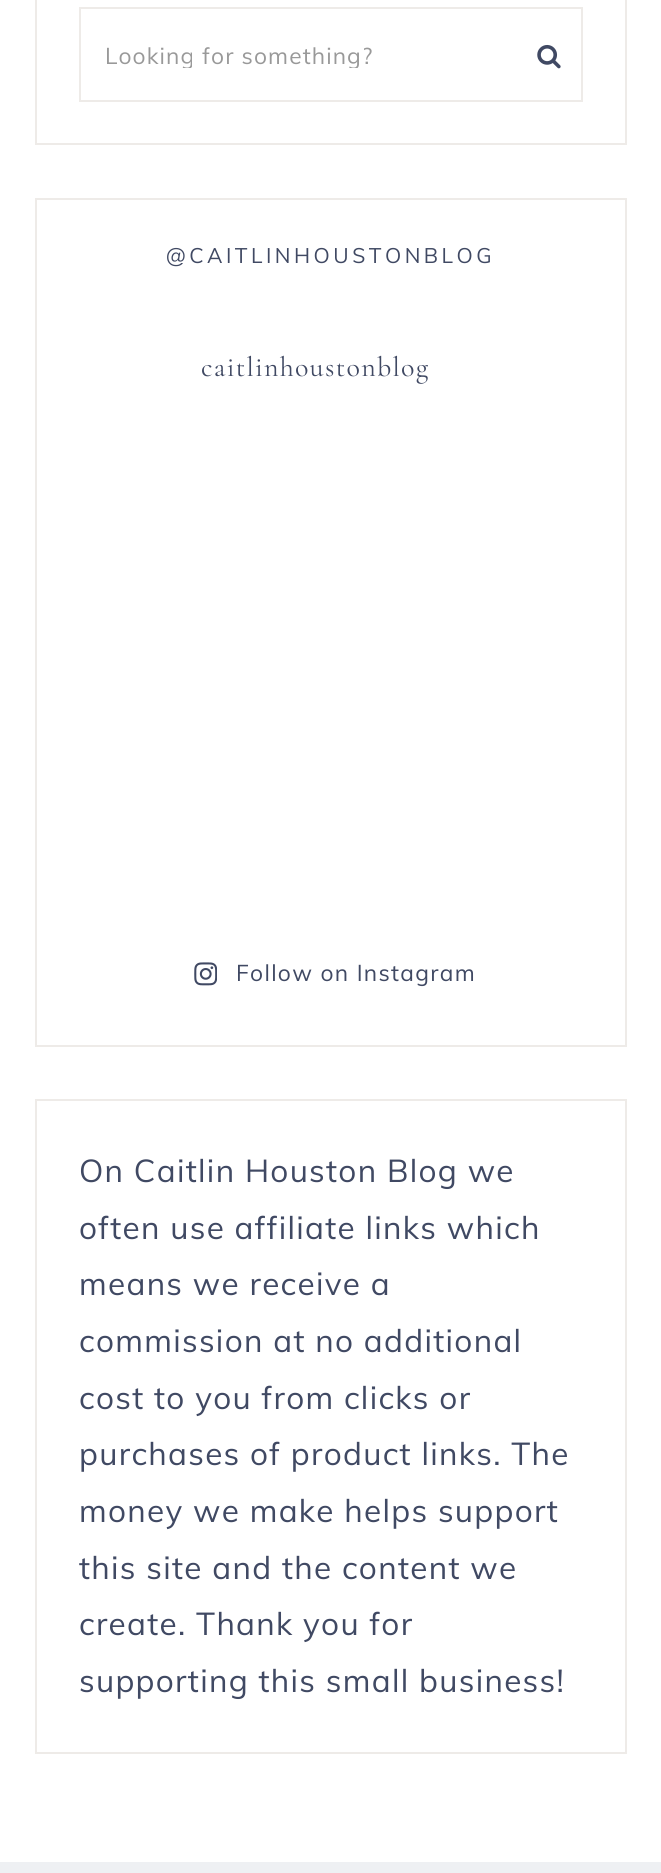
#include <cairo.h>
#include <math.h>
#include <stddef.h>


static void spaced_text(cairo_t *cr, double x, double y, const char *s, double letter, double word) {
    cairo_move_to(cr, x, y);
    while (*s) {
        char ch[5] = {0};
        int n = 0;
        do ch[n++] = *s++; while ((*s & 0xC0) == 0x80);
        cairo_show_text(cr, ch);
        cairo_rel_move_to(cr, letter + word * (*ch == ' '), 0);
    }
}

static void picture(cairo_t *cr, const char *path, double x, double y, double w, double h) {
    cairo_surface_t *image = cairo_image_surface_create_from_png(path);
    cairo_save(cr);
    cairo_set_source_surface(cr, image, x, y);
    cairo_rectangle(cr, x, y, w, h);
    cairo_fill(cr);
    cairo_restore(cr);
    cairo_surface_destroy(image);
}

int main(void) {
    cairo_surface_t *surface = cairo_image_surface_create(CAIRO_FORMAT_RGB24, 661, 1873);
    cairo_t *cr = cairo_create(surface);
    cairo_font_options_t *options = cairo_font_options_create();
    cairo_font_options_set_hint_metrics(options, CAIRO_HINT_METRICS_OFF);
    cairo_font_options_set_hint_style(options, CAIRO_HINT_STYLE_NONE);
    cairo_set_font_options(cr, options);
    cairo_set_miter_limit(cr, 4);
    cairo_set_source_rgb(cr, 1, 1, 1);
    cairo_paint(cr);
    cairo_rectangle(cr, 36, -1, 590, 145);
    cairo_set_source_rgb(cr, 0.933, 0.918, 0.91);
    cairo_stroke(cr);
    cairo_rectangle(cr, 80, 8, 502, 93);
    cairo_stroke(cr);
    cairo_save(cr);
    cairo_rectangle(cr, 105, 40, 452, 28);
    cairo_clip(cr);
    cairo_select_font_face(cr, "Muli", CAIRO_FONT_SLANT_NORMAL, CAIRO_FONT_WEIGHT_NORMAL);
    cairo_set_font_size(cr, 22.75);
    cairo_set_source_rgb(cr, 0.6, 0.6, 0.6);
    spaced_text(cr, 105, 64, "Looking for something?", 1.1, 0);
    cairo_restore(cr);
    picture(cr, "img1.png", 537, 44, 24, 25);
    cairo_rectangle(cr, 36, 199, 590, 847);
    cairo_stroke(cr);
    cairo_select_font_face(cr, "Muli", CAIRO_FONT_SLANT_NORMAL, CAIRO_FONT_WEIGHT_NORMAL);
    cairo_set_font_size(cr, 21);
    cairo_set_source_rgb(cr, 0.251, 0.286, 0.388);
    spaced_text(cr, 166, 263, "@CAITLINHOUSTONBLOG", 3.5, 0);
    cairo_select_font_face(cr, "Cormorant Garamond Light", CAIRO_FONT_SLANT_NORMAL, CAIRO_FONT_WEIGHT_NORMAL);
    cairo_set_font_size(cr, 28);
    spaced_text(cr, 201, 376, "caitlinhoustonblog", 1.3, 0);
    picture(cr, "img2.png", 194, 962, 23, 24);
    cairo_select_font_face(cr, "Muli", CAIRO_FONT_SLANT_NORMAL, CAIRO_FONT_WEIGHT_NORMAL);
    cairo_set_font_size(cr, 22.75);
    spaced_text(cr, 236, 981, "Follow on Instagram", 1.3, 0);
    cairo_rectangle(cr, 36, 1100, 590, 653);
    cairo_set_source_rgb(cr, 0.933, 0.918, 0.91);
    cairo_stroke(cr);
    cairo_set_font_size(cr, 31.5);
    cairo_set_source_rgb(cr, 0.251, 0.286, 0.388);
    spaced_text(cr, 79, 1182, "On Caitlin Houston Blog we", 1.3, 0);
    spaced_text(cr, 79, 1239, "often use affiliate links which", 1.3, 0);
    spaced_text(cr, 79, 1295, "means we receive a", 1.3, 0);
    spaced_text(cr, 79, 1352, "commission at no additional", 1.3, 0);
    spaced_text(cr, 79, 1409, "cost to you from clicks or", 1.3, 0);
    spaced_text(cr, 79, 1465, "purchases of product links. The", 1.3, 0);
    spaced_text(cr, 79, 1522, "money we make helps support", 1.3, 0);
    spaced_text(cr, 79, 1579, "this site and the content we", 1.3, 0);
    spaced_text(cr, 79, 1635, "create. Thank you for", 1.3, 0);
    spaced_text(cr, 79, 1692, "supporting this small business!", 1.3, 0);
    cairo_rectangle(cr, -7, 1869, 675, 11);
    cairo_set_source_rgb(cr, 0.933, 0.941, 0.953);
    cairo_set_line_width(cr, 14);
    cairo_stroke(cr);
    cairo_surface_write_to_png(surface, "page.png");
    cairo_font_options_destroy(options);
    cairo_destroy(cr);
    cairo_surface_destroy(surface);
    return 0;
}
